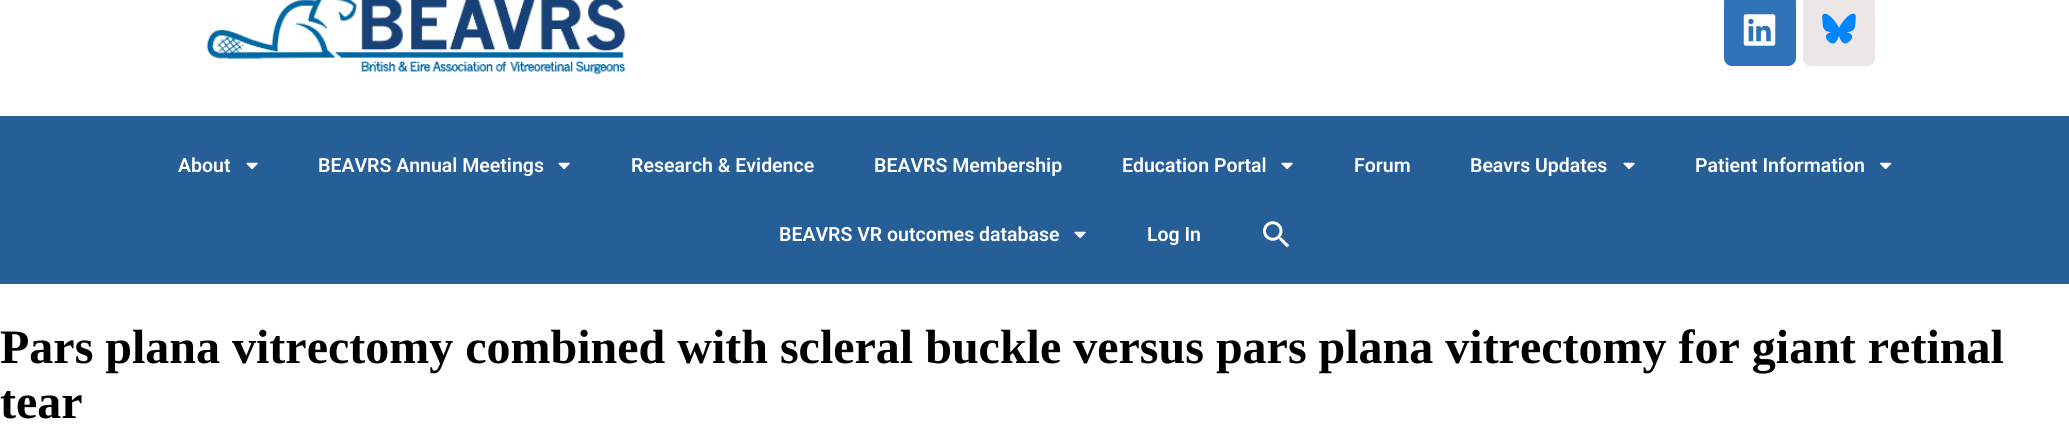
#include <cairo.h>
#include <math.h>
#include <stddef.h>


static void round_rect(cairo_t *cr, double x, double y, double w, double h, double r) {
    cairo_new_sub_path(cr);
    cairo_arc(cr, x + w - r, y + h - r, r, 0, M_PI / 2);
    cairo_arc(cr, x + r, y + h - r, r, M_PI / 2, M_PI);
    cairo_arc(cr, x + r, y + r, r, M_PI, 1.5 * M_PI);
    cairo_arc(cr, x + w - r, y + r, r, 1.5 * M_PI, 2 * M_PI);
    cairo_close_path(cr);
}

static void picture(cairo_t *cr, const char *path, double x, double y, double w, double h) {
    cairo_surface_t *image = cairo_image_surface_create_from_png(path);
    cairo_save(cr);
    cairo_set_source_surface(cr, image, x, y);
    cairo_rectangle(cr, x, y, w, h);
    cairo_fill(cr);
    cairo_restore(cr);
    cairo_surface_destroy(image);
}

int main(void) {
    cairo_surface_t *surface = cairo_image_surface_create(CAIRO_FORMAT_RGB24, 2069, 438);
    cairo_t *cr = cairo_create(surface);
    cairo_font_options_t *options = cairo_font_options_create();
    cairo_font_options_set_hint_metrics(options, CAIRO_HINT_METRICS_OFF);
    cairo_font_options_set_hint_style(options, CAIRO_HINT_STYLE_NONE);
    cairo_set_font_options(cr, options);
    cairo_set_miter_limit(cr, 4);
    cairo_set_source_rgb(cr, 1, 1, 1);
    cairo_paint(cr);
    picture(cr, "img1.png", 206, 0, 420, 75);
    cairo_set_source_rgb(cr, 0.184, 0.447, 0.722);
    round_rect(cr, 1724, -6, 72, 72, 8);
    cairo_fill(cr);
    picture(cr, "img2.png", 1743, 14, 33, 32);
    cairo_set_source_rgb(cr, 0.922, 0.902, 0.902);
    round_rect(cr, 1803, -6, 72, 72, 8);
    cairo_fill(cr);
    picture(cr, "img3.png", 1822, 13, 34, 31);
    cairo_set_source_rgb(cr, 0.149, 0.369, 0.596);
    cairo_rectangle(cr, 0, 116, 2069, 168);
    cairo_fill(cr);
    cairo_select_font_face(cr, "Roboto SemiBold", CAIRO_FONT_SLANT_NORMAL, CAIRO_FONT_WEIGHT_NORMAL);
    cairo_set_font_size(cr, 19.5);
    cairo_set_source_rgb(cr, 1, 1, 1);
    cairo_move_to(cr, 178, 172);
    cairo_show_text(cr, "About");
    picture(cr, "img4.png", 246, 162, 12, 8);
    cairo_move_to(cr, 318, 172);
    cairo_show_text(cr, "BEAVRS Annual Meetings");
    picture(cr, "img4.png", 558, 162, 12, 8);
    cairo_move_to(cr, 631, 172);
    cairo_show_text(cr, "Research & Evidence");
    cairo_move_to(cr, 874, 172);
    cairo_show_text(cr, "BEAVRS Membership");
    cairo_move_to(cr, 1122, 172);
    cairo_show_text(cr, "Education Portal");
    picture(cr, "img4.png", 1281, 162, 12, 8);
    cairo_move_to(cr, 1354, 172);
    cairo_show_text(cr, "Forum");
    cairo_move_to(cr, 1470, 172);
    cairo_show_text(cr, "Beavrs Updates");
    picture(cr, "img4.png", 1623, 162, 12, 8);
    cairo_move_to(cr, 1695, 172);
    cairo_show_text(cr, "Patient Information");
    picture(cr, "img5.png", 1880, 162, 12, 8);
    cairo_move_to(cr, 779, 241);
    cairo_show_text(cr, "BEAVRS VR outcomes database");
    picture(cr, "img4.png", 1074, 231, 12, 8);
    cairo_move_to(cr, 1147, 241);
    cairo_show_text(cr, "Log In");
    picture(cr, "img6.png", 1263, 221, 27, 27);
    cairo_select_font_face(cr, "Liberation Serif", CAIRO_FONT_SLANT_NORMAL, CAIRO_FONT_WEIGHT_BOLD);
    cairo_set_font_size(cr, 48);
    cairo_set_source_rgb(cr, 0, 0, 0);
    cairo_move_to(cr, 0, 363);
    cairo_show_text(cr, "Pars plana vitrectomy combined with scleral buckle versus pars plana vitrectomy for giant retinal");
    cairo_move_to(cr, 0, 418);
    cairo_show_text(cr, "tear");
    cairo_surface_write_to_png(surface, "page.png");
    cairo_font_options_destroy(options);
    cairo_destroy(cr);
    cairo_surface_destroy(surface);
    return 0;
}
